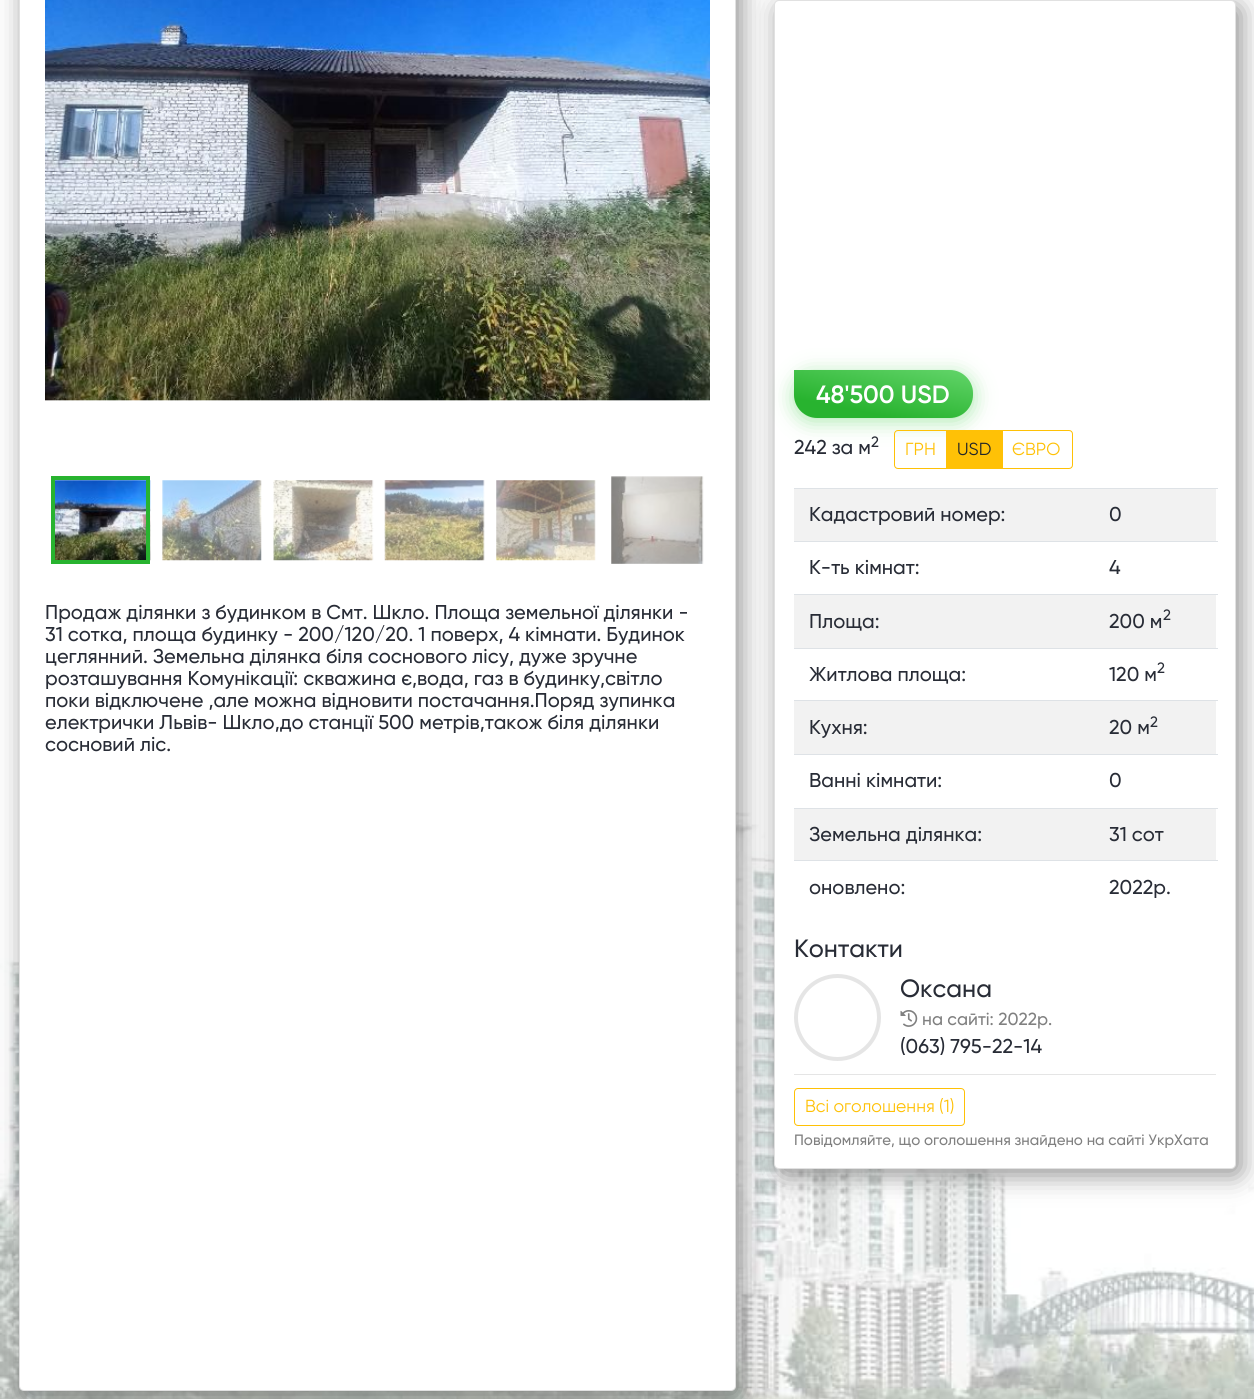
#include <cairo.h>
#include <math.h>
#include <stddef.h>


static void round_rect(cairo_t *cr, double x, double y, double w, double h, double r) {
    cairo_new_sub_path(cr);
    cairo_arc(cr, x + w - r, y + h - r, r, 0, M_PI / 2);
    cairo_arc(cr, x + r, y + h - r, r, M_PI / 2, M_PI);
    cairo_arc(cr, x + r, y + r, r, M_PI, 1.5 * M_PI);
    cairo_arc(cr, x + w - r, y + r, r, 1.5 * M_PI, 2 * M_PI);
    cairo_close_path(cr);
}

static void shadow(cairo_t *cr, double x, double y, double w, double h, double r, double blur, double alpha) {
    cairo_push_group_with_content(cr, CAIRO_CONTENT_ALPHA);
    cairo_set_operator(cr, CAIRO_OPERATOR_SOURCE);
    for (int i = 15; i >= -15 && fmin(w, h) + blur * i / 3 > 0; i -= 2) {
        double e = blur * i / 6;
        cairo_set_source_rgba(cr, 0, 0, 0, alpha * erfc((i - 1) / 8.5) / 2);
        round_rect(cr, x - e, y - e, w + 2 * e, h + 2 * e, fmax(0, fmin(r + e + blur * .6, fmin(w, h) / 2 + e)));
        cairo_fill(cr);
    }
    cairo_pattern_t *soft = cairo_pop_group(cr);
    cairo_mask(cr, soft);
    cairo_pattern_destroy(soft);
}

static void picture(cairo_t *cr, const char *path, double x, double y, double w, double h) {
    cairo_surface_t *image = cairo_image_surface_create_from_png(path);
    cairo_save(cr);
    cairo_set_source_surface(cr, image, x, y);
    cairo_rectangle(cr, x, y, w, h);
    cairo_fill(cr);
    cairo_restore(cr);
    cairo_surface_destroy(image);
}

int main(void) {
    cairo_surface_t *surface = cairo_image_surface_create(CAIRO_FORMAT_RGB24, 1254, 1399);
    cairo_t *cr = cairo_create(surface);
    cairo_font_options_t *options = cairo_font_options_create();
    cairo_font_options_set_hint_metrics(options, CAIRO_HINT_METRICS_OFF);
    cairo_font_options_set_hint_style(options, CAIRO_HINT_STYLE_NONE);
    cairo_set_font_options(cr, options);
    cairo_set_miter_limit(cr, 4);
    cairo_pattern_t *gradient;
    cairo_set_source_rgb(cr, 1, 1, 1);
    cairo_paint(cr);
    picture(cr, "img9.png", 0, 744, 1254, 655);
    cairo_set_source_rgb(cr, 0.337, 0.337, 0.337);
    shadow(cr, 24, -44, 717, 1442, 5, 13, 0.66);
    cairo_set_source_rgb(cr, 1, 1, 1);
    round_rect(cr, 19, -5, 717, 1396, 5);
    cairo_fill(cr);
    round_rect(cr, 19.5, -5.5, 716, 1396, 4.5);
    cairo_set_source_rgba(cr, 0, 0, 0, 0.12);
    cairo_set_line_width(cr, 1);
    cairo_stroke(cr);
    picture(cr, "img1.png", 45, 0, 665, 401);
    picture(cr, "img2.png", 55, 480, 96, 81);
    cairo_rectangle(cr, 53, 478, 95, 84);
    cairo_set_source_rgb(cr, 0.157, 0.702, 0.184);
    cairo_set_line_width(cr, 4);
    cairo_stroke(cr);
    picture(cr, "img3.png", 162, 480, 100, 81);
    picture(cr, "img4.png", 273, 480, 101, 81);
    picture(cr, "img5.png", 384, 480, 101, 81);
    picture(cr, "img6.png", 496, 480, 100, 81);
    picture(cr, "img7.png", 611, 476, 93, 88);
    cairo_select_font_face(cr, "Gilroy Medium", CAIRO_FONT_SLANT_NORMAL, CAIRO_FONT_WEIGHT_NORMAL);
    cairo_set_font_size(cr, 20);
    cairo_set_source_rgb(cr, 0.157, 0.173, 0.212);
    cairo_move_to(cr, 45, 619);
    cairo_show_text(cr, "Продаж ділянки з будинком в Смт. Шкло. Площа земельної ділянки -");
    cairo_move_to(cr, 45, 641);
    cairo_show_text(cr, "31 сотка, площа будинку - 200/120/20. 1 поверх, 4 кімнати. Будинок");
    cairo_move_to(cr, 45, 663);
    cairo_show_text(cr, "цеглянний. Земельна ділянка біля соснового лісу, дуже зручне");
    cairo_move_to(cr, 45, 685);
    cairo_show_text(cr, "розташування Комунікації: скважина є,вода, газ в будинку,світло");
    cairo_move_to(cr, 45, 707);
    cairo_show_text(cr, "поки відключене ,але можна відновити постачання.Поряд зупинка");
    cairo_move_to(cr, 45, 729);
    cairo_show_text(cr, "електрички Львів- Шкло,до станції 500 метрів,також біля ділянки");
    cairo_move_to(cr, 45, 751);
    cairo_show_text(cr, "сосновий ліс.");
    cairo_set_source_rgb(cr, 0.337, 0.337, 0.337);
    shadow(cr, 779, 6, 462, 1169, 5, 13, 0.66);
    cairo_set_source_rgb(cr, 1, 1, 1);
    round_rect(cr, 774, 0, 462, 1169, 5);
    cairo_fill(cr);
    round_rect(cr, 774.5, 0.5, 461, 1168, 4.5);
    cairo_set_source_rgba(cr, 0, 0, 0, 0.12);
    cairo_set_line_width(cr, 1);
    cairo_stroke(cr);
    cairo_set_source_rgb(cr, 0.173, 0.78, 0.204);
    shadow(cr, 794, 374, 179, 47, 23, 10.5, 0.4);
    gradient = cairo_pattern_create_linear(875, 434, 891, 354);
    cairo_pattern_add_color_stop_rgba(gradient, 0.24, 0.157, 0.702, 0.184, 1);
    cairo_pattern_add_color_stop_rgba(gradient, 0.96, 0.376, 0.827, 0.404, 1);
    cairo_set_source(cr, gradient);
    cairo_pattern_destroy(gradient);
    cairo_new_path(cr);
    cairo_move_to(cr, 794, 370);
    cairo_line_to(cr, 950, 370);
    cairo_curve_to(cr, 962.5, 370, 973, 380.5, 973, 393);
    cairo_line_to(cr, 973, 395);
    cairo_curve_to(cr, 973, 407.5, 962.5, 418, 950, 418);
    cairo_line_to(cr, 817, 418);
    cairo_curve_to(cr, 804.5, 418, 794, 407.5, 794, 395);
    cairo_close_path(cr);
    cairo_fill(cr);
    cairo_select_font_face(cr, "Gilroy SemiBold", CAIRO_FONT_SLANT_NORMAL, CAIRO_FONT_WEIGHT_NORMAL);
    cairo_set_font_size(cr, 25);
    cairo_set_source_rgb(cr, 1, 1, 1);
    cairo_move_to(cr, 816, 403);
    cairo_show_text(cr, "48'500 USD");
    cairo_select_font_face(cr, "Gilroy Medium", CAIRO_FONT_SLANT_NORMAL, CAIRO_FONT_WEIGHT_NORMAL);
    cairo_set_font_size(cr, 20);
    cairo_set_source_rgb(cr, 0.157, 0.173, 0.212);
    cairo_move_to(cr, 794, 454);
    cairo_show_text(cr, "242 за м");
    cairo_set_font_size(cr, 15);
    cairo_move_to(cr, 871, 447);
    cairo_show_text(cr, "2");
    cairo_new_path(cr);
    cairo_move_to(cr, 898, 430.5);
    cairo_line_to(cr, 947.5, 430.5);
    cairo_line_to(cr, 947.5, 468.5);
    cairo_line_to(cr, 898, 468.5);
    cairo_curve_to(cr, 896, 468.5, 894.5, 467, 894.5, 465);
    cairo_line_to(cr, 894.5, 434);
    cairo_curve_to(cr, 894.5, 432, 896, 430.5, 898, 430.5);
    cairo_close_path(cr);
    cairo_set_source_rgb(cr, 1, 0.757, 0.027);
    cairo_stroke(cr);
    cairo_select_font_face(cr, "Gilroy", CAIRO_FONT_SLANT_NORMAL, CAIRO_FONT_WEIGHT_NORMAL);
    cairo_set_font_size(cr, 17.5);
    cairo_move_to(cr, 905, 455);
    cairo_show_text(cr, "ГРН");
    cairo_new_path(cr);
    cairo_move_to(cr, 1001.5, 430.5);
    cairo_line_to(cr, 1069, 430.5);
    cairo_curve_to(cr, 1071, 430.5, 1072.5, 432, 1072.5, 434);
    cairo_line_to(cr, 1072.5, 465);
    cairo_curve_to(cr, 1072.5, 467, 1071, 468.5, 1069, 468.5);
    cairo_line_to(cr, 1001.5, 468.5);
    cairo_close_path(cr);
    cairo_stroke(cr);
    cairo_rectangle(cr, 946, 430, 57, 39);
    cairo_fill(cr);
    cairo_set_source_rgb(cr, 0.129, 0.145, 0.161);
    cairo_move_to(cr, 957, 455);
    cairo_show_text(cr, "USD");
    cairo_set_source_rgb(cr, 1, 0.757, 0.027);
    cairo_move_to(cr, 1012, 455);
    cairo_show_text(cr, "ЄВРО");
    cairo_set_source_rgb(cr, 0.949, 0.949, 0.949);
    cairo_rectangle(cr, 794, 489, 422, 52);
    cairo_fill(cr);
    cairo_select_font_face(cr, "Gilroy Medium", CAIRO_FONT_SLANT_NORMAL, CAIRO_FONT_WEIGHT_NORMAL);
    cairo_set_font_size(cr, 20);
    cairo_set_source_rgb(cr, 0.157, 0.173, 0.212);
    cairo_move_to(cr, 809, 521);
    cairo_show_text(cr, "Кадастровий номер:");
    cairo_set_source_rgb(cr, 0.871, 0.886, 0.902);
    cairo_rectangle(cr, 794, 488, 424, 1);
    cairo_fill(cr);
    cairo_set_source_rgb(cr, 0.157, 0.173, 0.212);
    cairo_move_to(cr, 1109, 521);
    cairo_show_text(cr, "0");
    cairo_move_to(cr, 809, 574);
    cairo_show_text(cr, "К-ть кімнат:");
    cairo_set_source_rgb(cr, 0.871, 0.886, 0.902);
    cairo_rectangle(cr, 794, 541, 424, 1);
    cairo_fill(cr);
    cairo_set_source_rgb(cr, 0.157, 0.173, 0.212);
    cairo_move_to(cr, 1109, 574);
    cairo_show_text(cr, "4");
    cairo_set_source_rgb(cr, 0.949, 0.949, 0.949);
    cairo_rectangle(cr, 794, 595, 422, 53);
    cairo_fill(cr);
    cairo_set_source_rgb(cr, 0.157, 0.173, 0.212);
    cairo_move_to(cr, 809, 628);
    cairo_show_text(cr, "Площа:");
    cairo_set_source_rgb(cr, 0.871, 0.886, 0.902);
    cairo_rectangle(cr, 794, 594, 424, 1);
    cairo_fill(cr);
    cairo_set_source_rgb(cr, 0.157, 0.173, 0.212);
    cairo_move_to(cr, 1109, 628);
    cairo_show_text(cr, "200 м");
    cairo_set_font_size(cr, 15);
    cairo_move_to(cr, 1163, 620);
    cairo_show_text(cr, "2");
    cairo_set_font_size(cr, 20);
    cairo_move_to(cr, 809, 681);
    cairo_show_text(cr, "Житлова площа:");
    cairo_set_source_rgb(cr, 0.871, 0.886, 0.902);
    cairo_rectangle(cr, 794, 648, 424, 1);
    cairo_fill(cr);
    cairo_set_source_rgb(cr, 0.157, 0.173, 0.212);
    cairo_move_to(cr, 1109, 681);
    cairo_show_text(cr, "120 м");
    cairo_set_font_size(cr, 15);
    cairo_move_to(cr, 1157, 673);
    cairo_show_text(cr, "2");
    cairo_set_source_rgb(cr, 0.949, 0.949, 0.949);
    cairo_rectangle(cr, 794, 701, 422, 53);
    cairo_fill(cr);
    cairo_set_font_size(cr, 20);
    cairo_set_source_rgb(cr, 0.157, 0.173, 0.212);
    cairo_move_to(cr, 809, 734);
    cairo_show_text(cr, "Кухня:");
    cairo_set_source_rgb(cr, 0.871, 0.886, 0.902);
    cairo_rectangle(cr, 794, 700, 424, 1);
    cairo_fill(cr);
    cairo_set_source_rgb(cr, 0.157, 0.173, 0.212);
    cairo_move_to(cr, 1109, 734);
    cairo_show_text(cr, "20 м");
    cairo_set_font_size(cr, 15);
    cairo_move_to(cr, 1150, 727);
    cairo_show_text(cr, "2");
    cairo_set_font_size(cr, 20);
    cairo_move_to(cr, 809, 787);
    cairo_show_text(cr, "Ванні кімнати:");
    cairo_set_source_rgb(cr, 0.871, 0.886, 0.902);
    cairo_rectangle(cr, 794, 754, 424, 1);
    cairo_fill(cr);
    cairo_set_source_rgb(cr, 0.157, 0.173, 0.212);
    cairo_move_to(cr, 1109, 787);
    cairo_show_text(cr, "0");
    cairo_set_source_rgb(cr, 0.949, 0.949, 0.949);
    cairo_rectangle(cr, 794, 809, 422, 51);
    cairo_fill(cr);
    cairo_set_source_rgb(cr, 0.157, 0.173, 0.212);
    cairo_move_to(cr, 809, 841);
    cairo_show_text(cr, "Земельна ділянка:");
    cairo_set_source_rgb(cr, 0.871, 0.886, 0.902);
    cairo_rectangle(cr, 794, 808, 424, 1);
    cairo_fill(cr);
    cairo_set_source_rgb(cr, 0.157, 0.173, 0.212);
    cairo_move_to(cr, 1109, 841);
    cairo_show_text(cr, "31 сот");
    cairo_move_to(cr, 809, 894);
    cairo_show_text(cr, "оновлено:");
    cairo_set_source_rgb(cr, 0.871, 0.886, 0.902);
    cairo_rectangle(cr, 794, 860, 424, 1);
    cairo_fill(cr);
    cairo_set_source_rgb(cr, 0.157, 0.173, 0.212);
    cairo_move_to(cr, 1109, 894);
    cairo_show_text(cr, "2022р.");
    cairo_set_font_size(cr, 25);
    cairo_move_to(cr, 794, 957);
    cairo_show_text(cr, "Контакти");
    cairo_set_source_rgb(cr, 0.898, 0.898, 0.898);
    cairo_rectangle(cr, 794, 1074, 422, 1);
    cairo_fill(cr);
    cairo_arc(cr, 837.5, 1017.5, 41.5, 0, 2 * M_PI);
    cairo_set_line_width(cr, 4);
    cairo_stroke(cr);
    cairo_set_source_rgb(cr, 0.157, 0.173, 0.212);
    cairo_move_to(cr, 900, 997);
    cairo_show_text(cr, "Оксана");
    picture(cr, "img8.png", 900, 1010, 18, 17);
    cairo_set_font_size(cr, 17.5);
    cairo_set_source_rgb(cr, 0.502, 0.502, 0.502);
    cairo_move_to(cr, 922, 1025);
    cairo_show_text(cr, "на сайті: 2022р.");
    cairo_set_font_size(cr, 20);
    cairo_set_source_rgb(cr, 0.157, 0.173, 0.212);
    cairo_move_to(cr, 900, 1053);
    cairo_show_text(cr, "(063) 795-22-14");
    round_rect(cr, 794.5, 1088.5, 170, 37, 3.5);
    cairo_set_source_rgb(cr, 1, 0.757, 0.027);
    cairo_set_line_width(cr, 1);
    cairo_stroke(cr);
    cairo_select_font_face(cr, "Gilroy", CAIRO_FONT_SLANT_NORMAL, CAIRO_FONT_WEIGHT_NORMAL);
    cairo_set_font_size(cr, 17.5);
    cairo_move_to(cr, 805, 1112);
    cairo_show_text(cr, "Всі оголошення (1)");
    cairo_select_font_face(cr, "Gilroy Medium", CAIRO_FONT_SLANT_NORMAL, CAIRO_FONT_WEIGHT_NORMAL);
    cairo_set_font_size(cr, 15);
    cairo_set_source_rgb(cr, 0.502, 0.502, 0.502);
    cairo_move_to(cr, 794, 1145);
    cairo_show_text(cr, "Повідомляйте, що оголошення знайдено на сайті УкрХата");
    cairo_surface_write_to_png(surface, "page.png");
    cairo_font_options_destroy(options);
    cairo_destroy(cr);
    cairo_surface_destroy(surface);
    return 0;
}
